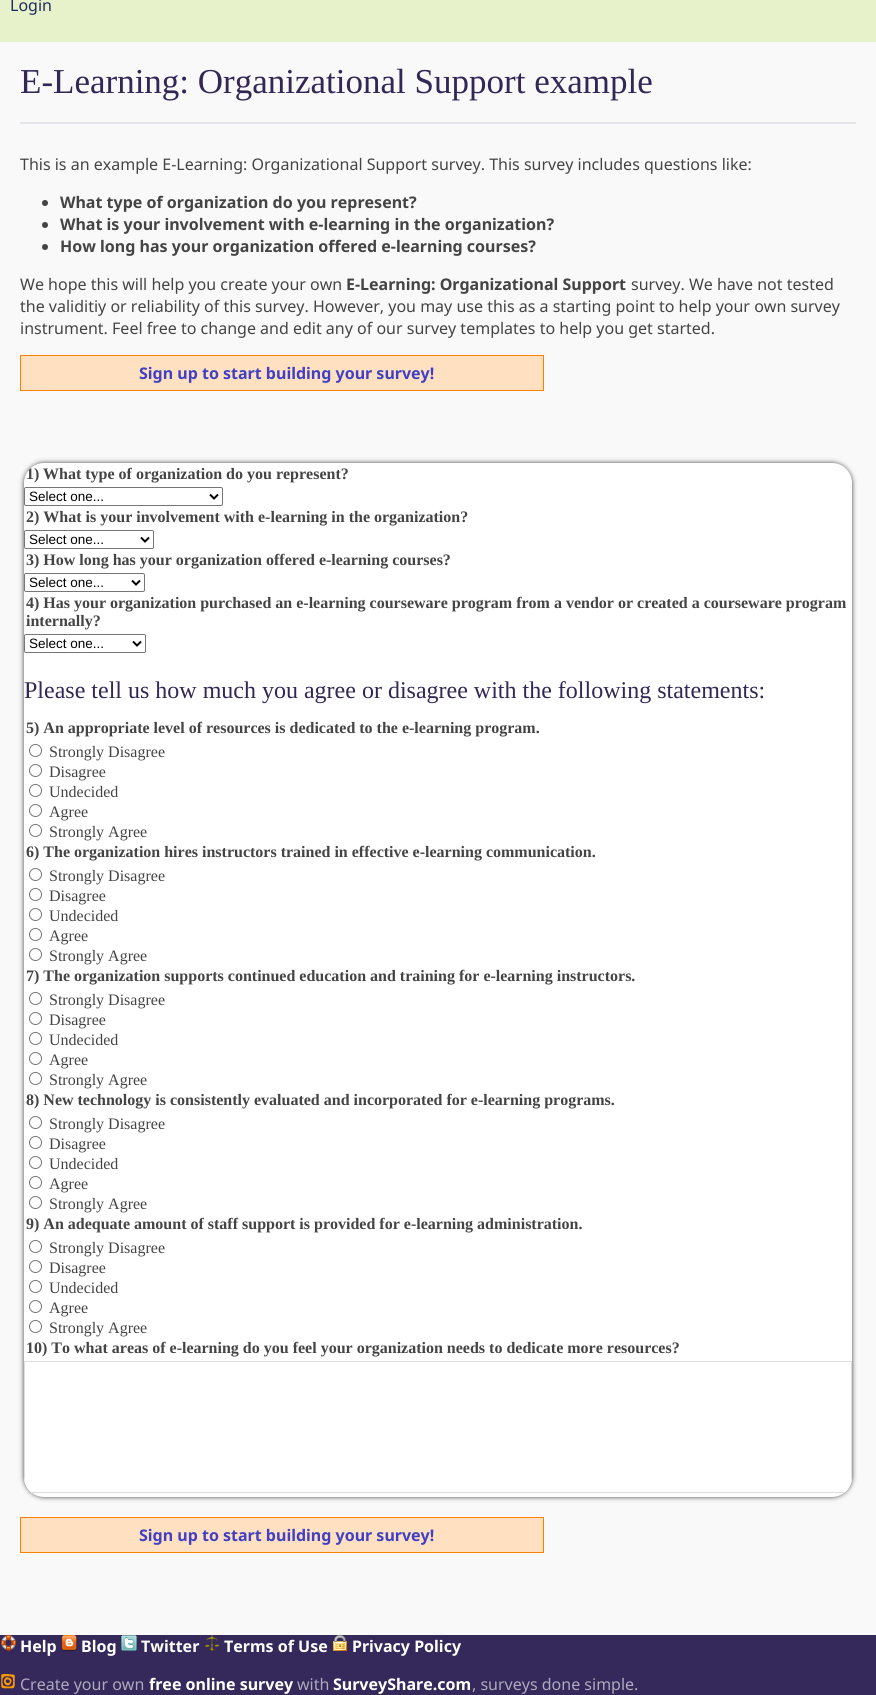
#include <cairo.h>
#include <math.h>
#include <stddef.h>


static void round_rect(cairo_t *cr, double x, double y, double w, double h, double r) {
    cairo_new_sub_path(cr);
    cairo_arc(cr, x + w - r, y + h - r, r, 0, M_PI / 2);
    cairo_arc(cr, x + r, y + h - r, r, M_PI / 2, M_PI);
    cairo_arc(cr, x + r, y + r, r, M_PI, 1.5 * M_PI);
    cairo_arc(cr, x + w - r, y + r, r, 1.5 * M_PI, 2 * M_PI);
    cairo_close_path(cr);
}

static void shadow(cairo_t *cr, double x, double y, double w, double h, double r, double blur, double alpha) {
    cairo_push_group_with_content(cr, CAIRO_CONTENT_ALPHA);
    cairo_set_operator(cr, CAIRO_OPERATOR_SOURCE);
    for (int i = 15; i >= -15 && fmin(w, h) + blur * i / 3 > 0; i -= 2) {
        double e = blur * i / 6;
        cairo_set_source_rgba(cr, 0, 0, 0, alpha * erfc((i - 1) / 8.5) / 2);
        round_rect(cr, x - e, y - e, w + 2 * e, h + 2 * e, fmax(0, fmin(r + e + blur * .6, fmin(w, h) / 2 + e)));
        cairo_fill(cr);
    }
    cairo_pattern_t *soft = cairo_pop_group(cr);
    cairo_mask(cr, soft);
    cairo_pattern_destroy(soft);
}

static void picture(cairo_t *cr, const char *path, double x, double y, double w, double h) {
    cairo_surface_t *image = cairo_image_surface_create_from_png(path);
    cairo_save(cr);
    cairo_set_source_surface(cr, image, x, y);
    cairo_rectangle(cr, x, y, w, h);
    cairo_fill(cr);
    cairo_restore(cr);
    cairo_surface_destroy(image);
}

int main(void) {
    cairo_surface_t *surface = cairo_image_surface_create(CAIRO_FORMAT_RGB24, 876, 1695);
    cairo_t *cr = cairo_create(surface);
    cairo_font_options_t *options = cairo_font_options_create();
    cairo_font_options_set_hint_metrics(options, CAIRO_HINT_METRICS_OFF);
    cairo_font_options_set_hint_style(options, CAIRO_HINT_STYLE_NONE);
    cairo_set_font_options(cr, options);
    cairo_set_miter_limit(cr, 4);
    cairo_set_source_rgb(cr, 0.204, 0.161, 0.353);
    cairo_paint(cr);
    cairo_set_source_rgb(cr, 0.906, 0.945, 0.792);
    cairo_rectangle(cr, 0, 0, 876, 42);
    cairo_fill(cr);
    cairo_select_font_face(cr, "Noto Sans", CAIRO_FONT_SLANT_NORMAL, CAIRO_FONT_WEIGHT_NORMAL);
    cairo_set_font_size(cr, 16);
    cairo_set_source_rgb(cr, 0.133, 0.165, 0.361);
    cairo_move_to(cr, 10, 11);
    cairo_show_text(cr, "Login");
    cairo_set_source_rgb(cr, 0.976, 0.976, 0.976);
    cairo_rectangle(cr, 0, 42, 876, 1593);
    cairo_fill(cr);
    cairo_set_source_rgb(cr, 0.898, 0.894, 0.914);
    cairo_rectangle(cr, 20, 122, 836, 2);
    cairo_fill(cr);
    cairo_select_font_face(cr, "Liberation Serif", CAIRO_FONT_SLANT_NORMAL, CAIRO_FONT_WEIGHT_NORMAL);
    cairo_set_font_size(cr, 35);
    cairo_set_source_rgb(cr, 0.196, 0.153, 0.333);
    cairo_move_to(cr, 20, 93);
    cairo_show_text(cr, "E-Learning: Organizational Support example");
    cairo_select_font_face(cr, "Noto Sans", CAIRO_FONT_SLANT_NORMAL, CAIRO_FONT_WEIGHT_NORMAL);
    cairo_set_font_size(cr, 16);
    cairo_set_source_rgb(cr, 0.267, 0.267, 0.267);
    cairo_move_to(cr, 20, 170);
    cairo_show_text(cr, "This is an example E-Learning: Organizational Support survey. This survey includes questions like:");
    cairo_new_path(cr);
    cairo_arc(cr, 45, 203, 3, 0, 2 * M_PI);
    cairo_fill(cr);
    cairo_select_font_face(cr, "Noto Sans", CAIRO_FONT_SLANT_NORMAL, CAIRO_FONT_WEIGHT_BOLD);
    cairo_move_to(cr, 60, 208);
    cairo_show_text(cr, "What type of organization do you represent?");
    cairo_new_path(cr);
    cairo_arc(cr, 45, 225, 3, 0, 2 * M_PI);
    cairo_fill(cr);
    cairo_move_to(cr, 60, 230);
    cairo_show_text(cr, "What is your involvement with e-learning in the organization?");
    cairo_new_path(cr);
    cairo_arc(cr, 45, 247, 3, 0, 2 * M_PI);
    cairo_fill(cr);
    cairo_move_to(cr, 60, 252);
    cairo_show_text(cr, "How long has your organization offered e-learning courses?");
    cairo_select_font_face(cr, "Noto Sans", CAIRO_FONT_SLANT_NORMAL, CAIRO_FONT_WEIGHT_NORMAL);
    cairo_move_to(cr, 20, 290);
    cairo_show_text(cr, "We hope this will help you create your own");
    cairo_select_font_face(cr, "Noto Sans", CAIRO_FONT_SLANT_NORMAL, CAIRO_FONT_WEIGHT_BOLD);
    cairo_move_to(cr, 346, 290);
    cairo_show_text(cr, "E-Learning: Organizational Support");
    cairo_select_font_face(cr, "Noto Sans", CAIRO_FONT_SLANT_NORMAL, CAIRO_FONT_WEIGHT_NORMAL);
    cairo_move_to(cr, 631, 290);
    cairo_show_text(cr, "survey. We have not tested");
    cairo_move_to(cr, 20, 312);
    cairo_show_text(cr, "the validitiy or reliability of this survey. However, you may use this as a starting point to help your own survey");
    cairo_move_to(cr, 20, 334);
    cairo_show_text(cr, "instrument. Feel free to change and edit any of our survey templates to help you get started.");
    cairo_set_source_rgb(cr, 1, 0.878, 0.753);
    cairo_rectangle(cr, 20.5, 355.5, 523, 35);
    cairo_fill_preserve(cr);
    cairo_set_source_rgb(cr, 1, 0.498, 0);
    cairo_set_line_width(cr, 1);
    cairo_stroke(cr);
    cairo_select_font_face(cr, "Noto Sans", CAIRO_FONT_SLANT_NORMAL, CAIRO_FONT_WEIGHT_BOLD);
    cairo_set_source_rgb(cr, 0.251, 0.251, 0.773);
    cairo_move_to(cr, 139, 379);
    cairo_show_text(cr, "Sign up to start building your survey!");
    cairo_set_source_rgb(cr, 0, 0, 0);
    shadow(cr, 24, 463, 828, 1034, 20, 2.5, 0.75);
    cairo_set_source_rgb(cr, 1, 1, 1);
    round_rect(cr, 24, 463, 828, 1034, 20);
    cairo_fill(cr);
    cairo_save(cr);
    round_rect(cr, 24, 463, 828, 1034, 20);
    cairo_clip(cr);
    cairo_select_font_face(cr, "Liberation Serif", CAIRO_FONT_SLANT_NORMAL, CAIRO_FONT_WEIGHT_BOLD);
    cairo_set_source_rgb(cr, 0.267, 0.267, 0.267);
    cairo_move_to(cr, 26, 479);
    cairo_show_text(cr, "1)");
    cairo_restore(cr);
    cairo_select_font_face(cr, "Liberation Serif", CAIRO_FONT_SLANT_NORMAL, CAIRO_FONT_WEIGHT_BOLD);
    cairo_set_source_rgb(cr, 0.267, 0.267, 0.267);
    cairo_move_to(cr, 43, 479);
    cairo_show_text(cr, "What type of organization do you represent?");
    round_rect(cr, 24.5, 487.5, 198, 18, 1.5);
    cairo_set_source_rgb(cr, 0.463, 0.463, 0.463);
    cairo_stroke(cr);
    cairo_new_path(cr);
    cairo_move_to(cr, 210, 494.5);
    cairo_line_to(cr, 214, 498.5);
    cairo_line_to(cr, 218, 494.5);
    cairo_set_source_rgb(cr, 0, 0, 0);
    cairo_set_line_width(cr, 2);
    cairo_stroke(cr);
    cairo_select_font_face(cr, "Liberation Sans", CAIRO_FONT_SLANT_NORMAL, CAIRO_FONT_WEIGHT_NORMAL);
    cairo_set_font_size(cr, 13.5);
    cairo_move_to(cr, 29, 501);
    cairo_show_text(cr, "Select one...");
    cairo_select_font_face(cr, "Liberation Serif", CAIRO_FONT_SLANT_NORMAL, CAIRO_FONT_WEIGHT_BOLD);
    cairo_set_font_size(cr, 16);
    cairo_set_source_rgb(cr, 0.267, 0.267, 0.267);
    cairo_move_to(cr, 26, 522);
    cairo_show_text(cr, "2) What is your involvement with e-learning in the organization?");
    round_rect(cr, 24.5, 530.5, 129, 18, 1.5);
    cairo_set_source_rgb(cr, 0.463, 0.463, 0.463);
    cairo_set_line_width(cr, 1);
    cairo_stroke(cr);
    cairo_new_path(cr);
    cairo_move_to(cr, 141, 537.5);
    cairo_line_to(cr, 145, 541.5);
    cairo_line_to(cr, 149, 537.5);
    cairo_set_source_rgb(cr, 0, 0, 0);
    cairo_set_line_width(cr, 2);
    cairo_stroke(cr);
    cairo_select_font_face(cr, "Liberation Sans", CAIRO_FONT_SLANT_NORMAL, CAIRO_FONT_WEIGHT_NORMAL);
    cairo_set_font_size(cr, 13.5);
    cairo_move_to(cr, 29, 544);
    cairo_show_text(cr, "Select one...");
    cairo_select_font_face(cr, "Liberation Serif", CAIRO_FONT_SLANT_NORMAL, CAIRO_FONT_WEIGHT_BOLD);
    cairo_set_font_size(cr, 16);
    cairo_set_source_rgb(cr, 0.267, 0.267, 0.267);
    cairo_move_to(cr, 26, 565);
    cairo_show_text(cr, "3) How long has your organization offered e-learning courses?");
    round_rect(cr, 24.5, 573.5, 120, 18, 1.5);
    cairo_set_source_rgb(cr, 0.463, 0.463, 0.463);
    cairo_set_line_width(cr, 1);
    cairo_stroke(cr);
    cairo_new_path(cr);
    cairo_move_to(cr, 132, 580.5);
    cairo_line_to(cr, 136, 584.5);
    cairo_line_to(cr, 140, 580.5);
    cairo_set_source_rgb(cr, 0, 0, 0);
    cairo_set_line_width(cr, 2);
    cairo_stroke(cr);
    cairo_select_font_face(cr, "Liberation Sans", CAIRO_FONT_SLANT_NORMAL, CAIRO_FONT_WEIGHT_NORMAL);
    cairo_set_font_size(cr, 13.5);
    cairo_move_to(cr, 29, 587);
    cairo_show_text(cr, "Select one...");
    cairo_select_font_face(cr, "Liberation Serif", CAIRO_FONT_SLANT_NORMAL, CAIRO_FONT_WEIGHT_BOLD);
    cairo_set_font_size(cr, 16);
    cairo_set_source_rgb(cr, 0.267, 0.267, 0.267);
    cairo_move_to(cr, 26, 608);
    cairo_show_text(cr, "4) Has your organization purchased an e-learning courseware program from a vendor or created a courseware program");
    cairo_move_to(cr, 26, 626);
    cairo_show_text(cr, "internally?");
    round_rect(cr, 24.5, 634.5, 121, 18, 1.5);
    cairo_set_source_rgb(cr, 0.463, 0.463, 0.463);
    cairo_set_line_width(cr, 1);
    cairo_stroke(cr);
    cairo_new_path(cr);
    cairo_move_to(cr, 133, 641.5);
    cairo_line_to(cr, 137, 645.5);
    cairo_line_to(cr, 141, 641.5);
    cairo_set_source_rgb(cr, 0, 0, 0);
    cairo_set_line_width(cr, 2);
    cairo_stroke(cr);
    cairo_select_font_face(cr, "Liberation Sans", CAIRO_FONT_SLANT_NORMAL, CAIRO_FONT_WEIGHT_NORMAL);
    cairo_set_font_size(cr, 13.5);
    cairo_move_to(cr, 29, 648);
    cairo_show_text(cr, "Select one...");
    cairo_select_font_face(cr, "Liberation Serif", CAIRO_FONT_SLANT_NORMAL, CAIRO_FONT_WEIGHT_NORMAL);
    cairo_set_font_size(cr, 24);
    cairo_set_source_rgb(cr, 0.196, 0.153, 0.333);
    cairo_move_to(cr, 24, 698);
    cairo_show_text(cr, "Please tell us how much you agree or disagree with the following statements:");
    cairo_select_font_face(cr, "Liberation Serif", CAIRO_FONT_SLANT_NORMAL, CAIRO_FONT_WEIGHT_BOLD);
    cairo_set_font_size(cr, 16);
    cairo_set_source_rgb(cr, 0.267, 0.267, 0.267);
    cairo_move_to(cr, 26, 733);
    cairo_show_text(cr, "5) An appropriate level of resources is dedicated to the e-learning program.");
    cairo_new_path(cr);
    cairo_arc(cr, 35.5, 750.5, 6, 0, 2 * M_PI);
    cairo_set_source_rgb(cr, 0.463, 0.463, 0.463);
    cairo_set_line_width(cr, 1);
    cairo_stroke(cr);
    cairo_select_font_face(cr, "Liberation Serif", CAIRO_FONT_SLANT_NORMAL, CAIRO_FONT_WEIGHT_NORMAL);
    cairo_set_source_rgb(cr, 0.267, 0.267, 0.267);
    cairo_move_to(cr, 49, 757);
    cairo_show_text(cr, "Strongly Disagree");
    cairo_new_path(cr);
    cairo_arc(cr, 35.5, 770.5, 6, 0, 2 * M_PI);
    cairo_set_source_rgb(cr, 0.463, 0.463, 0.463);
    cairo_stroke(cr);
    cairo_set_source_rgb(cr, 0.267, 0.267, 0.267);
    cairo_move_to(cr, 49, 777);
    cairo_show_text(cr, "Disagree");
    cairo_new_path(cr);
    cairo_arc(cr, 35.5, 790.5, 6, 0, 2 * M_PI);
    cairo_set_source_rgb(cr, 0.463, 0.463, 0.463);
    cairo_stroke(cr);
    cairo_set_source_rgb(cr, 0.267, 0.267, 0.267);
    cairo_move_to(cr, 49, 797);
    cairo_show_text(cr, "Undecided");
    cairo_new_path(cr);
    cairo_arc(cr, 35.5, 810.5, 6, 0, 2 * M_PI);
    cairo_set_source_rgb(cr, 0.463, 0.463, 0.463);
    cairo_stroke(cr);
    cairo_set_source_rgb(cr, 0.267, 0.267, 0.267);
    cairo_move_to(cr, 49, 817);
    cairo_show_text(cr, "Agree");
    cairo_new_path(cr);
    cairo_arc(cr, 35.5, 830.5, 6, 0, 2 * M_PI);
    cairo_set_source_rgb(cr, 0.463, 0.463, 0.463);
    cairo_stroke(cr);
    cairo_set_source_rgb(cr, 0.267, 0.267, 0.267);
    cairo_move_to(cr, 49, 837);
    cairo_show_text(cr, "Strongly Agree");
    cairo_select_font_face(cr, "Liberation Serif", CAIRO_FONT_SLANT_NORMAL, CAIRO_FONT_WEIGHT_BOLD);
    cairo_move_to(cr, 26, 857);
    cairo_show_text(cr, "6) The organization hires instructors trained in effective e-learning communication.");
    cairo_new_path(cr);
    cairo_arc(cr, 35.5, 874.5, 6, 0, 2 * M_PI);
    cairo_set_source_rgb(cr, 0.463, 0.463, 0.463);
    cairo_stroke(cr);
    cairo_select_font_face(cr, "Liberation Serif", CAIRO_FONT_SLANT_NORMAL, CAIRO_FONT_WEIGHT_NORMAL);
    cairo_set_source_rgb(cr, 0.267, 0.267, 0.267);
    cairo_move_to(cr, 49, 881);
    cairo_show_text(cr, "Strongly Disagree");
    cairo_new_path(cr);
    cairo_arc(cr, 35.5, 894.5, 6, 0, 2 * M_PI);
    cairo_set_source_rgb(cr, 0.463, 0.463, 0.463);
    cairo_stroke(cr);
    cairo_set_source_rgb(cr, 0.267, 0.267, 0.267);
    cairo_move_to(cr, 49, 901);
    cairo_show_text(cr, "Disagree");
    cairo_new_path(cr);
    cairo_arc(cr, 35.5, 914.5, 6, 0, 2 * M_PI);
    cairo_set_source_rgb(cr, 0.463, 0.463, 0.463);
    cairo_stroke(cr);
    cairo_set_source_rgb(cr, 0.267, 0.267, 0.267);
    cairo_move_to(cr, 49, 921);
    cairo_show_text(cr, "Undecided");
    cairo_new_path(cr);
    cairo_arc(cr, 35.5, 934.5, 6, 0, 2 * M_PI);
    cairo_set_source_rgb(cr, 0.463, 0.463, 0.463);
    cairo_stroke(cr);
    cairo_set_source_rgb(cr, 0.267, 0.267, 0.267);
    cairo_move_to(cr, 49, 941);
    cairo_show_text(cr, "Agree");
    cairo_new_path(cr);
    cairo_arc(cr, 35.5, 954.5, 6, 0, 2 * M_PI);
    cairo_set_source_rgb(cr, 0.463, 0.463, 0.463);
    cairo_stroke(cr);
    cairo_set_source_rgb(cr, 0.267, 0.267, 0.267);
    cairo_move_to(cr, 49, 961);
    cairo_show_text(cr, "Strongly Agree");
    cairo_select_font_face(cr, "Liberation Serif", CAIRO_FONT_SLANT_NORMAL, CAIRO_FONT_WEIGHT_BOLD);
    cairo_move_to(cr, 26, 981);
    cairo_show_text(cr, "7) The organization supports continued education and training for e-learning instructors.");
    cairo_new_path(cr);
    cairo_arc(cr, 35.5, 998.5, 6, 0, 2 * M_PI);
    cairo_set_source_rgb(cr, 0.463, 0.463, 0.463);
    cairo_stroke(cr);
    cairo_select_font_face(cr, "Liberation Serif", CAIRO_FONT_SLANT_NORMAL, CAIRO_FONT_WEIGHT_NORMAL);
    cairo_set_source_rgb(cr, 0.267, 0.267, 0.267);
    cairo_move_to(cr, 49, 1005);
    cairo_show_text(cr, "Strongly Disagree");
    cairo_new_path(cr);
    cairo_arc(cr, 35.5, 1018.5, 6, 0, 2 * M_PI);
    cairo_set_source_rgb(cr, 0.463, 0.463, 0.463);
    cairo_stroke(cr);
    cairo_set_source_rgb(cr, 0.267, 0.267, 0.267);
    cairo_move_to(cr, 49, 1025);
    cairo_show_text(cr, "Disagree");
    cairo_new_path(cr);
    cairo_arc(cr, 35.5, 1038.5, 6, 0, 2 * M_PI);
    cairo_set_source_rgb(cr, 0.463, 0.463, 0.463);
    cairo_stroke(cr);
    cairo_set_source_rgb(cr, 0.267, 0.267, 0.267);
    cairo_move_to(cr, 49, 1045);
    cairo_show_text(cr, "Undecided");
    cairo_new_path(cr);
    cairo_arc(cr, 35.5, 1058.5, 6, 0, 2 * M_PI);
    cairo_set_source_rgb(cr, 0.463, 0.463, 0.463);
    cairo_stroke(cr);
    cairo_set_source_rgb(cr, 0.267, 0.267, 0.267);
    cairo_move_to(cr, 49, 1065);
    cairo_show_text(cr, "Agree");
    cairo_new_path(cr);
    cairo_arc(cr, 35.5, 1078.5, 6, 0, 2 * M_PI);
    cairo_set_source_rgb(cr, 0.463, 0.463, 0.463);
    cairo_stroke(cr);
    cairo_set_source_rgb(cr, 0.267, 0.267, 0.267);
    cairo_move_to(cr, 49, 1085);
    cairo_show_text(cr, "Strongly Agree");
    cairo_select_font_face(cr, "Liberation Serif", CAIRO_FONT_SLANT_NORMAL, CAIRO_FONT_WEIGHT_BOLD);
    cairo_move_to(cr, 26, 1105);
    cairo_show_text(cr, "8) New technology is consistently evaluated and incorporated for e-learning programs.");
    cairo_new_path(cr);
    cairo_arc(cr, 35.5, 1122.5, 6, 0, 2 * M_PI);
    cairo_set_source_rgb(cr, 0.463, 0.463, 0.463);
    cairo_stroke(cr);
    cairo_select_font_face(cr, "Liberation Serif", CAIRO_FONT_SLANT_NORMAL, CAIRO_FONT_WEIGHT_NORMAL);
    cairo_set_source_rgb(cr, 0.267, 0.267, 0.267);
    cairo_move_to(cr, 49, 1129);
    cairo_show_text(cr, "Strongly Disagree");
    cairo_new_path(cr);
    cairo_arc(cr, 35.5, 1142.5, 6, 0, 2 * M_PI);
    cairo_set_source_rgb(cr, 0.463, 0.463, 0.463);
    cairo_stroke(cr);
    cairo_set_source_rgb(cr, 0.267, 0.267, 0.267);
    cairo_move_to(cr, 49, 1149);
    cairo_show_text(cr, "Disagree");
    cairo_new_path(cr);
    cairo_arc(cr, 35.5, 1162.5, 6, 0, 2 * M_PI);
    cairo_set_source_rgb(cr, 0.463, 0.463, 0.463);
    cairo_stroke(cr);
    cairo_set_source_rgb(cr, 0.267, 0.267, 0.267);
    cairo_move_to(cr, 49, 1169);
    cairo_show_text(cr, "Undecided");
    cairo_new_path(cr);
    cairo_arc(cr, 35.5, 1182.5, 6, 0, 2 * M_PI);
    cairo_set_source_rgb(cr, 0.463, 0.463, 0.463);
    cairo_stroke(cr);
    cairo_set_source_rgb(cr, 0.267, 0.267, 0.267);
    cairo_move_to(cr, 49, 1189);
    cairo_show_text(cr, "Agree");
    cairo_new_path(cr);
    cairo_arc(cr, 35.5, 1202.5, 6, 0, 2 * M_PI);
    cairo_set_source_rgb(cr, 0.463, 0.463, 0.463);
    cairo_stroke(cr);
    cairo_set_source_rgb(cr, 0.267, 0.267, 0.267);
    cairo_move_to(cr, 49, 1209);
    cairo_show_text(cr, "Strongly Agree");
    cairo_select_font_face(cr, "Liberation Serif", CAIRO_FONT_SLANT_NORMAL, CAIRO_FONT_WEIGHT_BOLD);
    cairo_move_to(cr, 26, 1229);
    cairo_show_text(cr, "9) An adequate amount of staff support is provided for e-learning administration.");
    cairo_new_path(cr);
    cairo_arc(cr, 35.5, 1246.5, 6, 0, 2 * M_PI);
    cairo_set_source_rgb(cr, 0.463, 0.463, 0.463);
    cairo_stroke(cr);
    cairo_select_font_face(cr, "Liberation Serif", CAIRO_FONT_SLANT_NORMAL, CAIRO_FONT_WEIGHT_NORMAL);
    cairo_set_source_rgb(cr, 0.267, 0.267, 0.267);
    cairo_move_to(cr, 49, 1253);
    cairo_show_text(cr, "Strongly Disagree");
    cairo_new_path(cr);
    cairo_arc(cr, 35.5, 1266.5, 6, 0, 2 * M_PI);
    cairo_set_source_rgb(cr, 0.463, 0.463, 0.463);
    cairo_stroke(cr);
    cairo_set_source_rgb(cr, 0.267, 0.267, 0.267);
    cairo_move_to(cr, 49, 1273);
    cairo_show_text(cr, "Disagree");
    cairo_new_path(cr);
    cairo_arc(cr, 35.5, 1286.5, 6, 0, 2 * M_PI);
    cairo_set_source_rgb(cr, 0.463, 0.463, 0.463);
    cairo_stroke(cr);
    cairo_set_source_rgb(cr, 0.267, 0.267, 0.267);
    cairo_move_to(cr, 49, 1293);
    cairo_show_text(cr, "Undecided");
    cairo_new_path(cr);
    cairo_arc(cr, 35.5, 1306.5, 6, 0, 2 * M_PI);
    cairo_set_source_rgb(cr, 0.463, 0.463, 0.463);
    cairo_stroke(cr);
    cairo_set_source_rgb(cr, 0.267, 0.267, 0.267);
    cairo_move_to(cr, 49, 1313);
    cairo_show_text(cr, "Agree");
    cairo_new_path(cr);
    cairo_arc(cr, 35.5, 1326.5, 6, 0, 2 * M_PI);
    cairo_set_source_rgb(cr, 0.463, 0.463, 0.463);
    cairo_stroke(cr);
    cairo_set_source_rgb(cr, 0.267, 0.267, 0.267);
    cairo_move_to(cr, 49, 1333);
    cairo_show_text(cr, "Strongly Agree");
    cairo_select_font_face(cr, "Liberation Serif", CAIRO_FONT_SLANT_NORMAL, CAIRO_FONT_WEIGHT_BOLD);
    cairo_move_to(cr, 26, 1353);
    cairo_show_text(cr, "10) To what areas of e-learning do you feel your organization needs to dedicate more resources?");
    cairo_save(cr);
    round_rect(cr, 24, 463, 828, 1034, 20);
    cairo_clip(cr);
    cairo_set_source_rgb(cr, 1, 1, 1);
    cairo_rectangle(cr, 24, 1362, 828, 131);
    cairo_fill(cr);
    cairo_restore(cr);
    cairo_set_source_rgb(cr, 0.867, 0.867, 0.867);
    cairo_set_fill_rule(cr, CAIRO_FILL_RULE_EVEN_ODD);
    cairo_new_path(cr);
    cairo_move_to(cr, 25, 1362);
    cairo_line_to(cr, 851, 1362);
    cairo_line_to(cr, 851, 1483);
    cairo_line_to(cr, 852, 1477);
    cairo_line_to(cr, 852, 1361);
    cairo_line_to(cr, 24, 1361);
    cairo_line_to(cr, 24, 1477);
    cairo_line_to(cr, 25, 1483);
    cairo_close_path(cr);
    cairo_move_to(cr, 844, 1493);
    cairo_line_to(cr, 845, 1492);
    cairo_line_to(cr, 31, 1492);
    cairo_line_to(cr, 32, 1493);
    cairo_close_path(cr);
    cairo_fill(cr);
    cairo_set_source_rgb(cr, 1, 0.878, 0.753);
    cairo_rectangle(cr, 20.5, 1517.5, 523, 35);
    cairo_fill_preserve(cr);
    cairo_set_source_rgb(cr, 1, 0.498, 0);
    cairo_stroke(cr);
    cairo_select_font_face(cr, "Noto Sans", CAIRO_FONT_SLANT_NORMAL, CAIRO_FONT_WEIGHT_BOLD);
    cairo_set_source_rgb(cr, 0.251, 0.251, 0.773);
    cairo_move_to(cr, 139, 1541);
    cairo_show_text(cr, "Sign up to start building your survey!");
    picture(cr, "img1.png", 1, 1635, 15, 16);
    cairo_set_source_rgb(cr, 1, 1, 1);
    cairo_move_to(cr, 20, 1652);
    cairo_show_text(cr, "Help");
    picture(cr, "img2.png", 61, 1635, 16, 16);
    cairo_move_to(cr, 81, 1652);
    cairo_show_text(cr, "Blog");
    picture(cr, "img3.png", 121, 1635, 16, 16);
    cairo_move_to(cr, 141, 1652);
    cairo_show_text(cr, "Twitter");
    picture(cr, "img4.png", 204, 1635, 16, 16);
    cairo_move_to(cr, 224, 1652);
    cairo_show_text(cr, "Terms of Use");
    picture(cr, "img5.png", 333, 1635, 14, 16);
    cairo_move_to(cr, 352, 1652);
    cairo_show_text(cr, "Privacy Policy");
    picture(cr, "img6.png", 1, 1674, 14, 15);
    cairo_select_font_face(cr, "Noto Sans", CAIRO_FONT_SLANT_NORMAL, CAIRO_FONT_WEIGHT_NORMAL);
    cairo_set_source_rgb(cr, 0.682, 0.663, 0.741);
    cairo_move_to(cr, 20, 1690);
    cairo_show_text(cr, "Create your own");
    cairo_select_font_face(cr, "Noto Sans", CAIRO_FONT_SLANT_NORMAL, CAIRO_FONT_WEIGHT_BOLD);
    cairo_set_source_rgb(cr, 1, 1, 1);
    cairo_move_to(cr, 149, 1690);
    cairo_show_text(cr, "free online survey");
    cairo_select_font_face(cr, "Noto Sans", CAIRO_FONT_SLANT_NORMAL, CAIRO_FONT_WEIGHT_NORMAL);
    cairo_set_source_rgb(cr, 0.682, 0.663, 0.741);
    cairo_move_to(cr, 297, 1690);
    cairo_show_text(cr, "with");
    cairo_select_font_face(cr, "Noto Sans", CAIRO_FONT_SLANT_NORMAL, CAIRO_FONT_WEIGHT_BOLD);
    cairo_set_source_rgb(cr, 1, 1, 1);
    cairo_move_to(cr, 333, 1690);
    cairo_show_text(cr, "SurveyShare.com");
    cairo_select_font_face(cr, "Noto Sans", CAIRO_FONT_SLANT_NORMAL, CAIRO_FONT_WEIGHT_NORMAL);
    cairo_set_source_rgb(cr, 0.682, 0.663, 0.741);
    cairo_move_to(cr, 472, 1690);
    cairo_show_text(cr, ", surveys done simple.");
    cairo_surface_write_to_png(surface, "page.png");
    cairo_font_options_destroy(options);
    cairo_destroy(cr);
    cairo_surface_destroy(surface);
    return 0;
}
